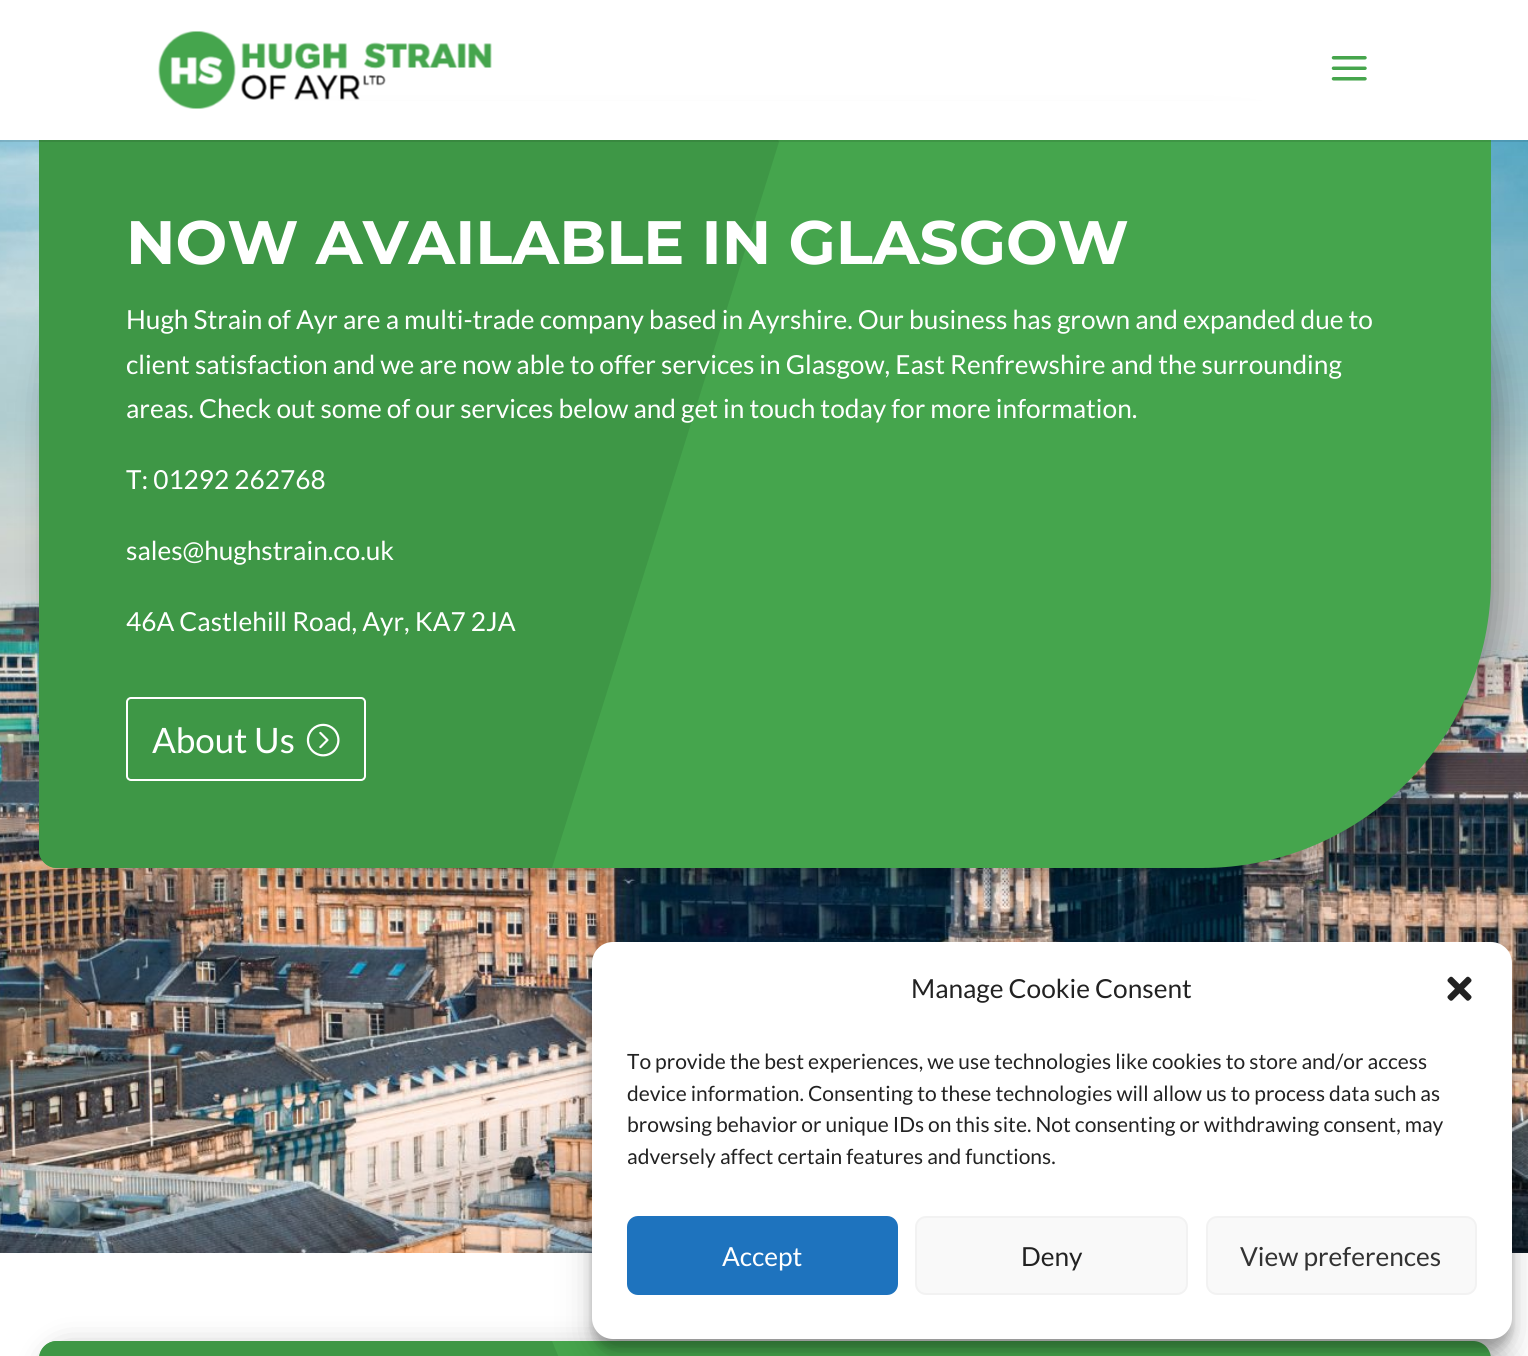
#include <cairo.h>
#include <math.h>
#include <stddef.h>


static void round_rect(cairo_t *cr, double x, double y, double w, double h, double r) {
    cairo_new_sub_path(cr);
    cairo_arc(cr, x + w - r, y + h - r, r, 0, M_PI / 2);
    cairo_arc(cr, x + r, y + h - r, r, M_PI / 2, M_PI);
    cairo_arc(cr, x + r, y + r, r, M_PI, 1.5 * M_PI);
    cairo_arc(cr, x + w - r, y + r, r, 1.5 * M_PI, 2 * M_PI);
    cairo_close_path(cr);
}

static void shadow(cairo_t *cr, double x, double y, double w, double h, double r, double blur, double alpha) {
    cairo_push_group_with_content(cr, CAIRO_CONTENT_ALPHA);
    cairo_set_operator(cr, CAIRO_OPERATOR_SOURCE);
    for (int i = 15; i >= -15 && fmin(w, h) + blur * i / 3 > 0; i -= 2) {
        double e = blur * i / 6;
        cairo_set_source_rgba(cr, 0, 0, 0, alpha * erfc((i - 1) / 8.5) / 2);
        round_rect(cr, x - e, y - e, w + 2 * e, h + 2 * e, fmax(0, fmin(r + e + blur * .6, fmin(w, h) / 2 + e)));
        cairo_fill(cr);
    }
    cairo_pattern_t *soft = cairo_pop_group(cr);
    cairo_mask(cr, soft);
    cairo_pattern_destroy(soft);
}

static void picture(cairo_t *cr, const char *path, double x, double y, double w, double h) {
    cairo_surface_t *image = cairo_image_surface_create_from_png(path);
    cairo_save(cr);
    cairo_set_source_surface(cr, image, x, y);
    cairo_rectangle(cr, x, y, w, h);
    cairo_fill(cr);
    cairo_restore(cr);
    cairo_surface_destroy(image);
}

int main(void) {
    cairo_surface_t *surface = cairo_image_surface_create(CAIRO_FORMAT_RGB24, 1528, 1356);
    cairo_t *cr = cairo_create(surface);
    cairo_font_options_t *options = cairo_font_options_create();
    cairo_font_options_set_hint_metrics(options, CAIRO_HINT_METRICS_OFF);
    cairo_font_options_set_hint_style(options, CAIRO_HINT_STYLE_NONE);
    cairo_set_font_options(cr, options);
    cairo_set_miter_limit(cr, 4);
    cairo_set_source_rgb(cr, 1, 1, 1);
    cairo_paint(cr);
    picture(cr, "img3.png", 0, 140, 1528, 1113);
    cairo_set_source_rgb(cr, 0, 0, 0);
    shadow(cr, 49, 130, 1453, 749, 289, 16, 0.3);
    cairo_set_source_rgb(cr, 0.271, 0.647, 0.302);
    cairo_new_path(cr);
    cairo_move_to(cr, 39, 119);
    cairo_line_to(cr, 1491, 119);
    cairo_line_to(cr, 1491, 579);
    cairo_curve_to(cr, 1491, 738.5, 1361.5, 868, 1202, 868);
    cairo_line_to(cr, 57, 868);
    cairo_curve_to(cr, 47, 868, 39, 860, 39, 850);
    cairo_close_path(cr);
    cairo_fill(cr);
    cairo_set_source_rgb(cr, 0.243, 0.592, 0.275);
    cairo_new_path(cr);
    cairo_move_to(cr, 552, 868);
    cairo_line_to(cr, 779, 142);
    cairo_line_to(cr, 772, 119);
    cairo_line_to(cr, 39, 119);
    cairo_line_to(cr, 39, 850);
    cairo_curve_to(cr, 39, 860, 47, 868, 57, 868);
    cairo_close_path(cr);
    cairo_fill(cr);
    cairo_set_source_rgba(cr, 0, 0, 0, 0.1);
    cairo_new_path(cr);
    cairo_move_to(cr, 0, 140);
    cairo_line_to(cr, 0, 142);
    cairo_line_to(cr, 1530, 142);
    cairo_line_to(cr, 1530, 2);
    cairo_line_to(cr, 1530, 140);
    cairo_close_path(cr);
    cairo_fill(cr);
    cairo_set_source_rgb(cr, 1, 1, 1);
    cairo_rectangle(cr, 39, 101, 1452, 39);
    cairo_fill(cr);
    picture(cr, "img1.png", 158, 31, 334, 78);
    picture(cr, "img2.png", 1331, 56, 36, 25);
    cairo_select_font_face(cr, "Montserrat", CAIRO_FONT_SLANT_NORMAL, CAIRO_FONT_WEIGHT_BOLD);
    cairo_set_font_size(cr, 61.25);
    cairo_move_to(cr, 126, 264);
    cairo_show_text(cr, "NOW AVAILABLE IN GLASGOW");
    cairo_select_font_face(cr, "Lato", CAIRO_FONT_SLANT_NORMAL, CAIRO_FONT_WEIGHT_NORMAL);
    cairo_set_font_size(cr, 26.25);
    cairo_move_to(cr, 126, 329);
    cairo_show_text(cr, "Hugh Strain of Ayr are a multi-trade company based in Ayrshire. Our business has grown and expanded due to");
    cairo_move_to(cr, 126, 374);
    cairo_show_text(cr, "client satisfaction and we are now able to offer services in Glasgow, East Renfrewshire and the surrounding");
    cairo_move_to(cr, 126, 418);
    cairo_show_text(cr, "areas. Check out some of our services below and get in touch today for more information.");
    cairo_move_to(cr, 126, 489);
    cairo_show_text(cr, "T: 01292 262768");
    cairo_move_to(cr, 126, 560);
    cairo_show_text(cr, "sales@hughstrain.co.uk");
    cairo_move_to(cr, 126, 631);
    cairo_show_text(cr, "46A Castlehill Road, Ayr, KA7 2JA");
    round_rect(cr, 127, 698, 238, 82, 4);
    cairo_stroke(cr);
    cairo_set_font_size(cr, 35);
    cairo_move_to(cr, 152, 753);
    cairo_show_text(cr, "About Us");
    picture(cr, "img4.png", 306, 723, 34, 34);
    cairo_set_source_rgb(cr, 0, 0, 0);
    shadow(cr, 49, 1351, 1453, 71, 18, 16, 0.3);
    cairo_set_source_rgb(cr, 0.275, 0.647, 0.298);
    cairo_new_path(cr);
    cairo_move_to(cr, 57, 1341);
    cairo_line_to(cr, 1473, 1341);
    cairo_curve_to(cr, 1483, 1341, 1491, 1349, 1491, 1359);
    cairo_line_to(cr, 1491, 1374);
    cairo_line_to(cr, 39, 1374);
    cairo_line_to(cr, 39, 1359);
    cairo_curve_to(cr, 39, 1349, 47, 1341, 57, 1341);
    cairo_close_path(cr);
    cairo_fill(cr);
    cairo_set_source_rgb(cr, 0.243, 0.592, 0.271);
    cairo_new_path(cr);
    cairo_move_to(cr, 57, 1341);
    cairo_curve_to(cr, 47, 1341, 39, 1349, 39, 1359);
    cairo_line_to(cr, 39, 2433);
    cairo_line_to(cr, 551, 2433);
    cairo_line_to(cr, 779, 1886);
    cairo_line_to(cr, 552, 1341);
    cairo_close_path(cr);
    cairo_fill(cr);
    cairo_set_source_rgb(cr, 0, 0, 0);
    shadow(cr, 592, 952, 920, 397, 21, 5, 0.23);
    shadow(cr, 592, 959, 920, 397, 21, 17.5, 0.19);
    cairo_set_source_rgb(cr, 1, 1, 1);
    round_rect(cr, 592, 942, 920, 397, 21);
    cairo_fill(cr);
    cairo_set_font_size(cr, 26.25);
    cairo_set_source_rgb(cr, 0.133, 0.133, 0.133);
    cairo_move_to(cr, 911, 998);
    cairo_show_text(cr, "Manage Cookie Consent");
    picture(cr, "img5.png", 1447, 976, 25, 25);
    cairo_set_font_size(cr, 21);
    cairo_move_to(cr, 627, 1069);
    cairo_show_text(cr, "To provide the best experiences, we use technologies like cookies to store and/or access");
    cairo_move_to(cr, 627, 1101);
    cairo_show_text(cr, "device information. Consenting to these technologies will allow us to process data such as");
    cairo_move_to(cr, 627, 1132);
    cairo_show_text(cr, "browsing behavior or unique IDs on this site. Not consenting or withdrawing consent, may");
    cairo_move_to(cr, 627, 1164);
    cairo_show_text(cr, "adversely affect certain features and functions.");
    cairo_set_source_rgb(cr, 0.118, 0.451, 0.745);
    round_rect(cr, 628, 1217, 269, 77, 10);
    cairo_fill_preserve(cr);
    cairo_stroke(cr);
    cairo_set_font_size(cr, 26.25);
    cairo_set_source_rgb(cr, 1, 1, 1);
    cairo_move_to(cr, 722, 1266);
    cairo_show_text(cr, "Accept");
    cairo_set_source_rgb(cr, 0.976, 0.976, 0.976);
    round_rect(cr, 916, 1217, 271, 77, 10);
    cairo_fill_preserve(cr);
    cairo_set_source_rgb(cr, 0.949, 0.949, 0.949);
    cairo_stroke(cr);
    cairo_set_source_rgb(cr, 0.133, 0.133, 0.133);
    cairo_move_to(cr, 1021, 1266);
    cairo_show_text(cr, "Deny");
    cairo_set_source_rgb(cr, 0.976, 0.976, 0.976);
    round_rect(cr, 1207, 1217, 269, 77, 10);
    cairo_fill_preserve(cr);
    cairo_set_source_rgb(cr, 0.949, 0.949, 0.949);
    cairo_stroke(cr);
    cairo_set_source_rgb(cr, 0.2, 0.2, 0.2);
    cairo_move_to(cr, 1240, 1266);
    cairo_show_text(cr, "View preferences");
    cairo_surface_write_to_png(surface, "page.png");
    cairo_font_options_destroy(options);
    cairo_destroy(cr);
    cairo_surface_destroy(surface);
    return 0;
}
